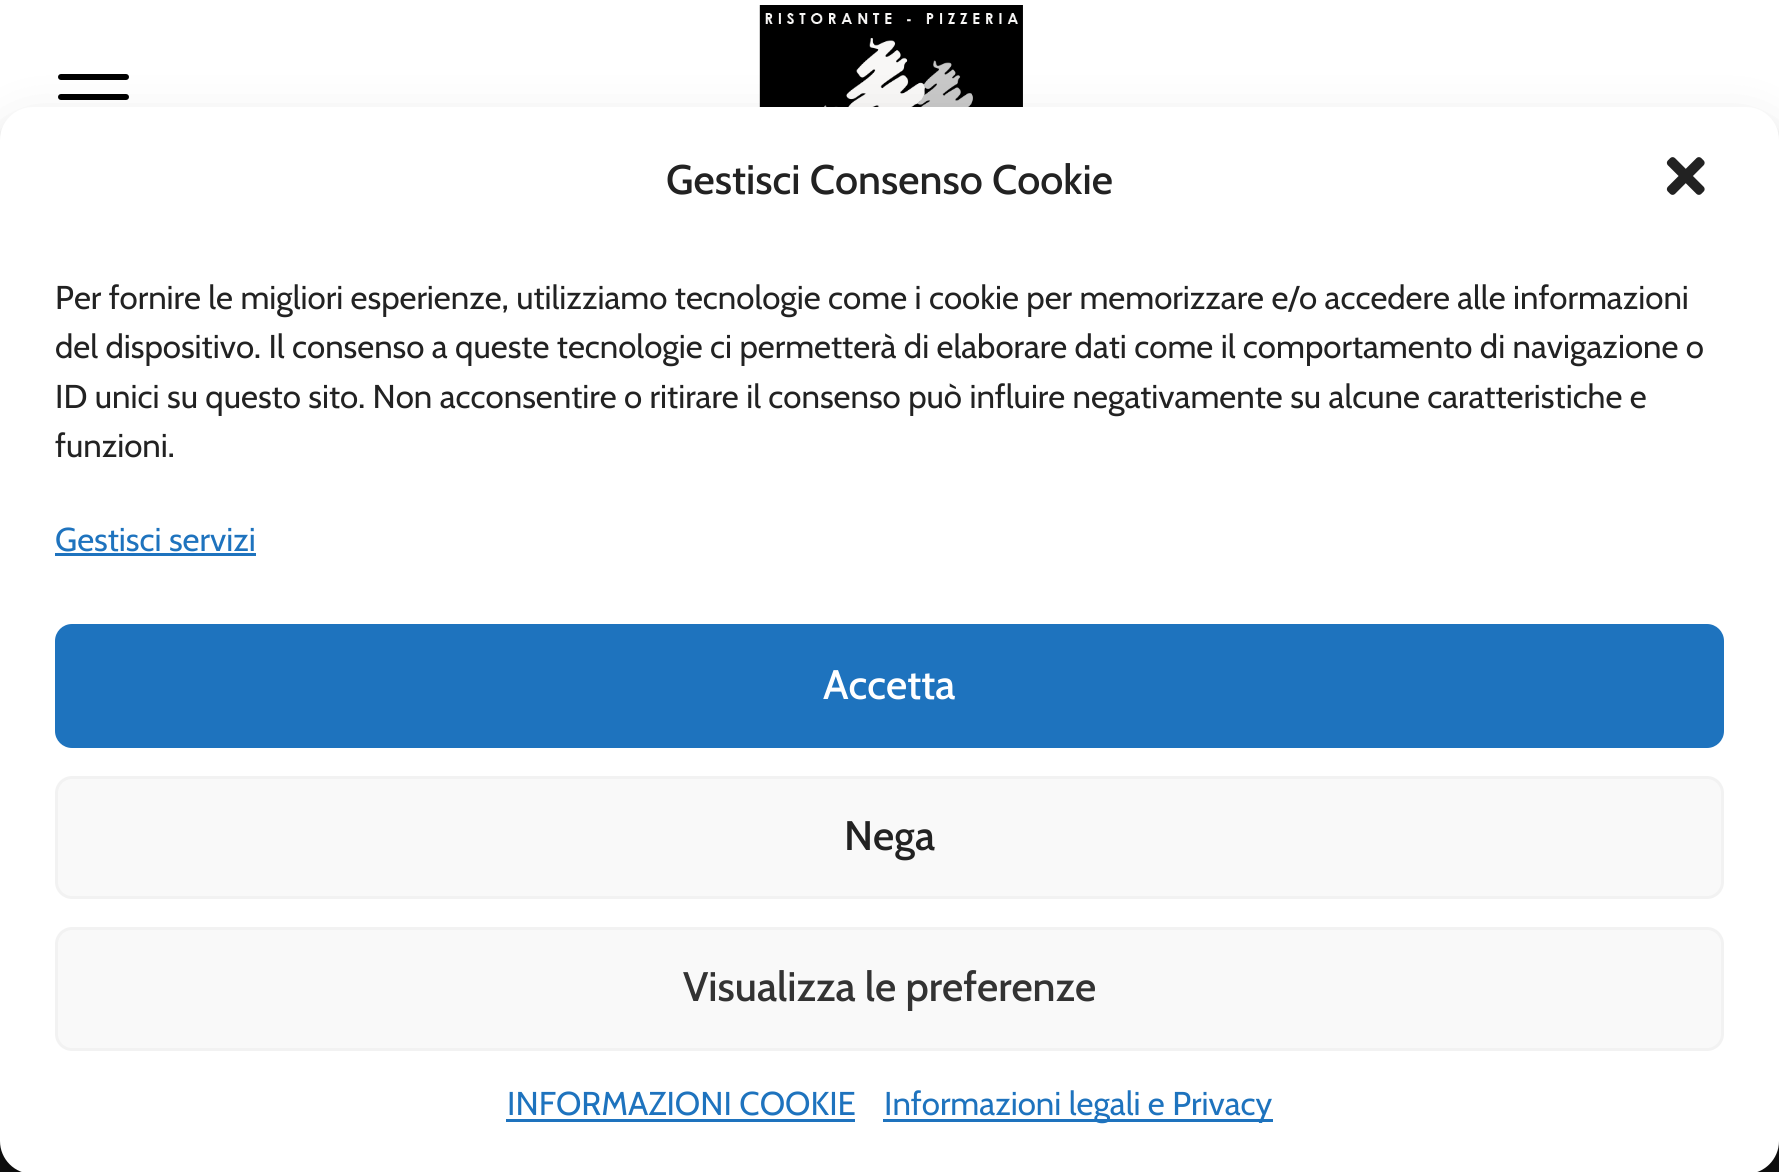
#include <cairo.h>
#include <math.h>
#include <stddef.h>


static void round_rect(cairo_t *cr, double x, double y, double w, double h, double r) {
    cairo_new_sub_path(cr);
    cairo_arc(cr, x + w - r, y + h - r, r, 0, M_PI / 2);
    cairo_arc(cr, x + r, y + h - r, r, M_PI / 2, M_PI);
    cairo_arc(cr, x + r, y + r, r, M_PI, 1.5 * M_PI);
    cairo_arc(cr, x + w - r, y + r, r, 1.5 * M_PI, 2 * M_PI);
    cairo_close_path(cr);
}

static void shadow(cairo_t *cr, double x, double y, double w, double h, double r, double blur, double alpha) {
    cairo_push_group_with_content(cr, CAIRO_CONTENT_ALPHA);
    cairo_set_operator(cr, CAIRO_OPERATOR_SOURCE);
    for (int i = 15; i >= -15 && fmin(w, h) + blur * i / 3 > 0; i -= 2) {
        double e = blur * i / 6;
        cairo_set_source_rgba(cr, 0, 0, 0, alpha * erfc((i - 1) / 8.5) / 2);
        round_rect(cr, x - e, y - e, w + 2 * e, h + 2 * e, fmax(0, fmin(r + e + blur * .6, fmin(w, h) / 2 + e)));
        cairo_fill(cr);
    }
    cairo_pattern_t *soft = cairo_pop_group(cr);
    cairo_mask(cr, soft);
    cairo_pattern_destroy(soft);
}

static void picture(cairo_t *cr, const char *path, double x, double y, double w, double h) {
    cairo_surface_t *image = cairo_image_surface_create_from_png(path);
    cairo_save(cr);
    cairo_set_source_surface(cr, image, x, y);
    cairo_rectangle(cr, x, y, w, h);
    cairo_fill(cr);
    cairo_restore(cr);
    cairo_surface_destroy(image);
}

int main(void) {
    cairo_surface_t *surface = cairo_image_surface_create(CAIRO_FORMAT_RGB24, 1779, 1172);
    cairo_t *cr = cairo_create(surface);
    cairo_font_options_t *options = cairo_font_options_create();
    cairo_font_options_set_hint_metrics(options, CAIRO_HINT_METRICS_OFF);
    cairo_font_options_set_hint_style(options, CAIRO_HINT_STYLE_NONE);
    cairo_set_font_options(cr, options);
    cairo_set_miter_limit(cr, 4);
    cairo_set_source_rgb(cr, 0.071, 0.071, 0.071);
    cairo_paint(cr);
    cairo_set_source_rgb(cr, 1, 1, 1);
    cairo_rectangle(cr, 0, 0, 1779, 140);
    cairo_fill(cr);
    cairo_set_source_rgb(cr, 0, 0, 0);
    round_rect(cr, 58, 94, 71, 6, 3);
    cairo_fill(cr);
    round_rect(cr, 58, 74, 71, 6, 3);
    cairo_fill(cr);
    picture(cr, "img1.png", 759, 5, 264, 102);
    cairo_set_source_rgb(cr, 0, 0, 0);
    shadow(cr, 0, 124, 1779, 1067, 33, 8, 0.23);
    shadow(cr, 0, 135, 1779, 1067, 33, 27.5, 0.19);
    cairo_set_source_rgb(cr, 1, 1, 1);
    round_rect(cr, 0, 107, 1779, 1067, 33);
    cairo_fill(cr);
    cairo_select_font_face(cr, "Cabin Medium", CAIRO_FONT_SLANT_NORMAL, CAIRO_FONT_WEIGHT_NORMAL);
    cairo_set_font_size(cr, 41.25);
    cairo_set_source_rgb(cr, 0.133, 0.133, 0.133);
    cairo_move_to(cr, 666, 194);
    cairo_show_text(cr, "Gestisci Consenso Cookie");
    picture(cr, "img2.png", 1666, 157, 39, 38);
    cairo_select_font_face(cr, "Cabin", CAIRO_FONT_SLANT_NORMAL, CAIRO_FONT_WEIGHT_NORMAL);
    cairo_set_font_size(cr, 33);
    cairo_move_to(cr, 55, 309);
    cairo_show_text(cr, "Per fornire le migliori esperienze, utilizziamo tecnologie come i cookie per memorizzare e/o accedere alle informazioni");
    cairo_move_to(cr, 55, 358);
    cairo_show_text(cr, "del dispositivo. Il consenso a queste tecnologie ci permetterà di elaborare dati come il comportamento di navigazione o");
    cairo_move_to(cr, 55, 408);
    cairo_show_text(cr, "ID unici su questo sito. Non acconsentire o ritirare il consenso può influire negativamente su alcune caratteristiche e");
    cairo_move_to(cr, 55, 457);
    cairo_show_text(cr, "funzioni.");
    cairo_set_source_rgb(cr, 0.118, 0.451, 0.745);
    cairo_move_to(cr, 55, 551);
    cairo_show_text(cr, "Gestisci servizi");
    cairo_rectangle(cr, 55, 553, 201, 3);
    cairo_fill(cr);
    round_rect(cr, 56.5, 625.5, 1666, 121, 15.5);
    cairo_fill_preserve(cr);
    cairo_set_line_width(cr, 3);
    cairo_stroke(cr);
    cairo_select_font_face(cr, "Cabin Medium", CAIRO_FONT_SLANT_NORMAL, CAIRO_FONT_WEIGHT_NORMAL);
    cairo_set_font_size(cr, 41.25);
    cairo_set_source_rgb(cr, 1, 1, 1);
    cairo_move_to(cr, 823, 699);
    cairo_show_text(cr, "Accetta");
    cairo_set_source_rgb(cr, 0.976, 0.976, 0.976);
    round_rect(cr, 56.5, 777.5, 1666, 120, 15.5);
    cairo_fill_preserve(cr);
    cairo_set_source_rgb(cr, 0.949, 0.949, 0.949);
    cairo_stroke(cr);
    cairo_set_source_rgb(cr, 0.133, 0.133, 0.133);
    cairo_move_to(cr, 844, 850);
    cairo_show_text(cr, "Nega");
    cairo_set_source_rgb(cr, 0.976, 0.976, 0.976);
    round_rect(cr, 56.5, 928.5, 1666, 121, 15.5);
    cairo_fill_preserve(cr);
    cairo_set_source_rgb(cr, 0.949, 0.949, 0.949);
    cairo_stroke(cr);
    cairo_set_source_rgb(cr, 0.2, 0.2, 0.2);
    cairo_move_to(cr, 683, 1001);
    cairo_show_text(cr, "Visualizza le preferenze");
    cairo_select_font_face(cr, "Cabin", CAIRO_FONT_SLANT_NORMAL, CAIRO_FONT_WEIGHT_NORMAL);
    cairo_set_font_size(cr, 33);
    cairo_set_source_rgb(cr, 0.118, 0.451, 0.745);
    cairo_move_to(cr, 507, 1115);
    cairo_show_text(cr, "INFORMAZIONI COOKIE");
    cairo_rectangle(cr, 506, 1119, 349, 3);
    cairo_fill(cr);
    cairo_rectangle(cr, 883, 1119, 390, 3);
    cairo_fill(cr);
    cairo_move_to(cr, 884, 1115);
    cairo_show_text(cr, "Informazioni legali e Privacy");
    cairo_surface_write_to_png(surface, "page.png");
    cairo_font_options_destroy(options);
    cairo_destroy(cr);
    cairo_surface_destroy(surface);
    return 0;
}
